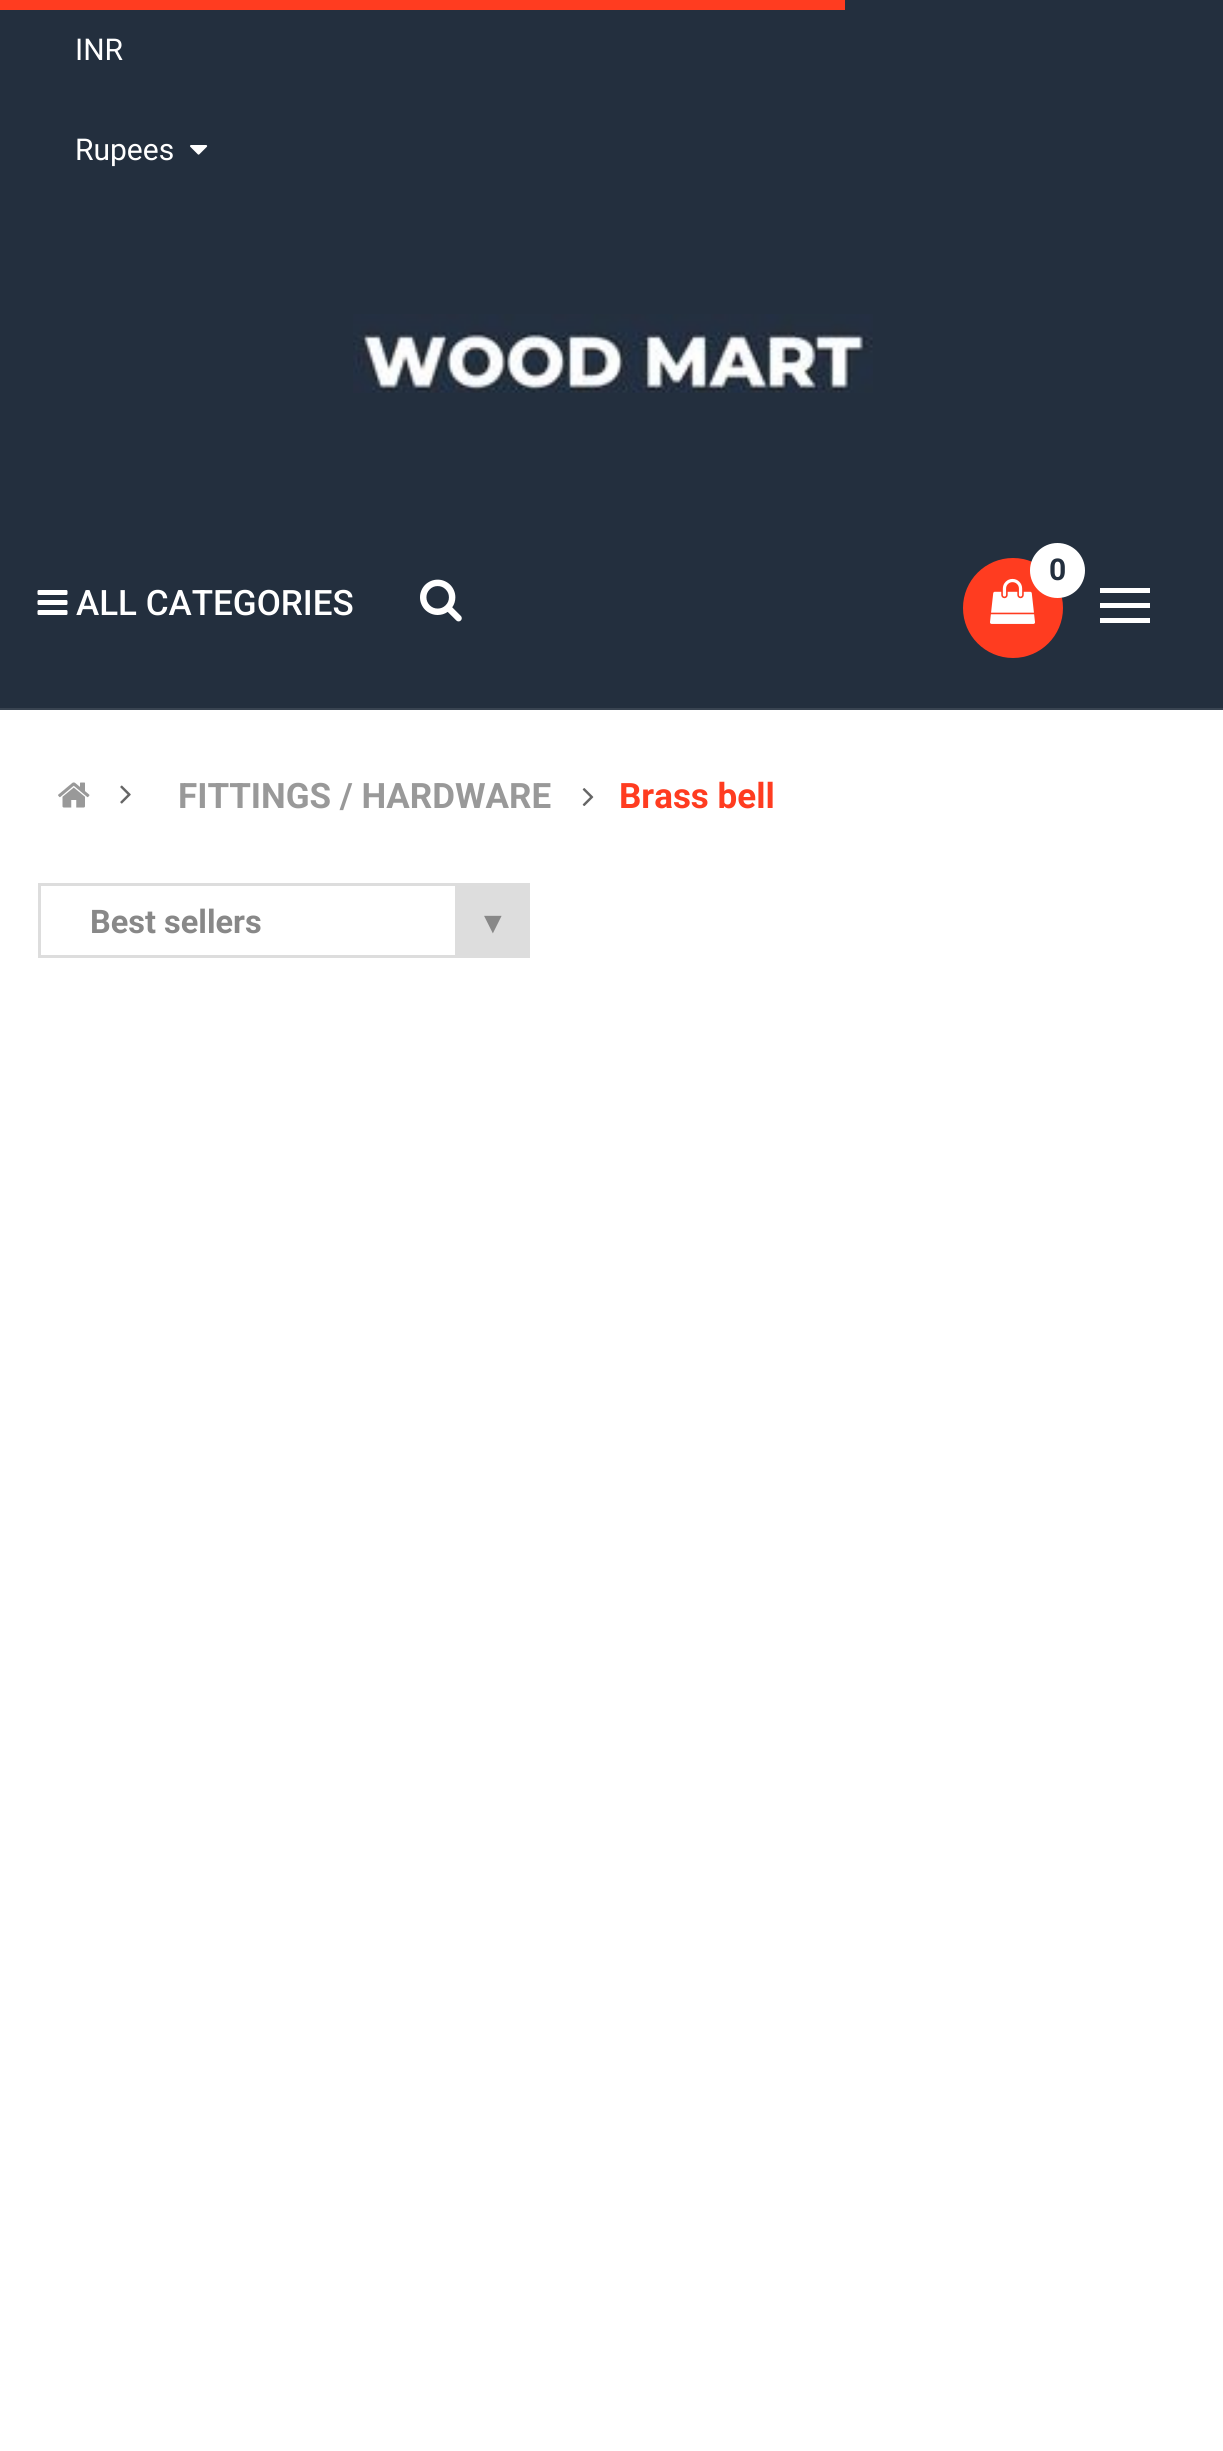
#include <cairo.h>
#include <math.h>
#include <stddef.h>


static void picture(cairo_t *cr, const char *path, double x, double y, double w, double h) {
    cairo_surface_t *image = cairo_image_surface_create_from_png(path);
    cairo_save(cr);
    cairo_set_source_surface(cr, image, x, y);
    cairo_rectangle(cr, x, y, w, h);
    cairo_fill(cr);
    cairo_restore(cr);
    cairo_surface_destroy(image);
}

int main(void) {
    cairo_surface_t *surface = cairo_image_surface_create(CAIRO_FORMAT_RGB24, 1223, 2451);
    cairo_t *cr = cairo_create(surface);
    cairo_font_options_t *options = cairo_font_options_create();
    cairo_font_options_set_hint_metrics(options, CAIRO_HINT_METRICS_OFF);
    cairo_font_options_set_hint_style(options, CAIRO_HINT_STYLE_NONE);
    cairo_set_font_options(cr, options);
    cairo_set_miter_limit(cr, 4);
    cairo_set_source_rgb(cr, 1, 1, 1);
    cairo_paint(cr);
    cairo_set_source_rgb(cr, 0.137, 0.184, 0.243);
    cairo_rectangle(cr, 0, 0, 1223, 708);
    cairo_fill(cr);
    cairo_set_source_rgb(cr, 1, 0.235, 0.125);
    cairo_rectangle(cr, 0, 0, 845, 10);
    cairo_fill(cr);
    cairo_set_source_rgb(cr, 0.224, 0.267, 0.318);
    cairo_rectangle(cr, 0, 708, 1223, 2);
    cairo_fill(cr);
    cairo_select_font_face(cr, "Roboto", CAIRO_FONT_SLANT_NORMAL, CAIRO_FONT_WEIGHT_NORMAL);
    cairo_set_font_size(cr, 30);
    cairo_set_source_rgb(cr, 1, 1, 1);
    cairo_move_to(cr, 75, 60);
    cairo_show_text(cr, "INR");
    cairo_move_to(cr, 75, 160);
    cairo_show_text(cr, "Rupees");
    picture(cr, "img1.png", 190, 145, 18, 10);
    picture(cr, "img2.png", 353, 314, 520, 79);
    cairo_rectangle(cr, 1100, 588, 50, 5);
    cairo_fill(cr);
    cairo_rectangle(cr, 1100, 603, 50, 5);
    cairo_fill(cr);
    cairo_rectangle(cr, 1100, 618, 50, 5);
    cairo_fill(cr);
    cairo_set_source_rgb(cr, 1, 0.235, 0.125);
    cairo_arc(cr, 1013, 608, 50, 0, 2 * M_PI);
    cairo_fill(cr);
    picture(cr, "img3.png", 990, 578, 45, 46);
    cairo_set_source_rgb(cr, 1, 1, 1);
    cairo_arc(cr, 1057.5, 570.5, 27.5, 0, 2 * M_PI);
    cairo_fill(cr);
    cairo_select_font_face(cr, "Roboto", CAIRO_FONT_SLANT_NORMAL, CAIRO_FONT_WEIGHT_BOLD);
    cairo_set_source_rgb(cr, 0.137, 0.184, 0.243);
    cairo_move_to(cr, 1049, 580);
    cairo_show_text(cr, "0");
    picture(cr, "img4.png", 37, 590, 31, 25);
    cairo_select_font_face(cr, "Roboto Medium", CAIRO_FONT_SLANT_NORMAL, CAIRO_FONT_WEIGHT_NORMAL);
    cairo_set_font_size(cr, 35);
    cairo_set_source_rgb(cr, 1, 1, 1);
    cairo_move_to(cr, 76, 615);
    cairo_show_text(cr, "ALL CATEGORIES");
    picture(cr, "img5.png", 420, 579, 42, 43);
    picture(cr, "img6.png", 58, 782, 32, 26);
    picture(cr, "img7.png", 120, 785, 11, 19);
    cairo_select_font_face(cr, "Roboto", CAIRO_FONT_SLANT_NORMAL, CAIRO_FONT_WEIGHT_BOLD);
    cairo_set_source_rgb(cr, 0.6, 0.6, 0.6);
    cairo_move_to(cr, 178, 808);
    cairo_show_text(cr, "FITTINGS / HARDWARE");
    picture(cr, "img8.png", 582, 788, 12, 18);
    cairo_set_source_rgb(cr, 1, 0.235, 0.125);
    cairo_move_to(cr, 619, 808);
    cairo_show_text(cr, "Brass bell");
    cairo_set_source_rgb(cr, 0.867, 0.867, 0.867);
    cairo_rectangle(cr, 38, 883, 417, 3);
    cairo_fill(cr);
    cairo_rectangle(cr, 38, 955, 417, 3);
    cairo_fill(cr);
    cairo_rectangle(cr, 38, 883, 3, 75);
    cairo_fill(cr);
    cairo_set_font_size(cr, 32.5);
    cairo_set_source_rgb(cr, 0.533, 0.533, 0.533);
    cairo_move_to(cr, 90, 933);
    cairo_show_text(cr, "Best sellers");
    cairo_set_source_rgb(cr, 0.867, 0.867, 0.867);
    cairo_rectangle(cr, 455, 883, 75, 75);
    cairo_fill(cr);
    cairo_select_font_face(cr, "Liberation Sans", CAIRO_FONT_SLANT_NORMAL, CAIRO_FONT_WEIGHT_BOLD);
    cairo_set_font_size(cr, 30);
    cairo_set_source_rgb(cr, 0.533, 0.533, 0.533);
    cairo_move_to(cr, 478, 933);
    cairo_show_text(cr, "▼");
    cairo_surface_write_to_png(surface, "page.png");
    cairo_font_options_destroy(options);
    cairo_destroy(cr);
    cairo_surface_destroy(surface);
    return 0;
}
